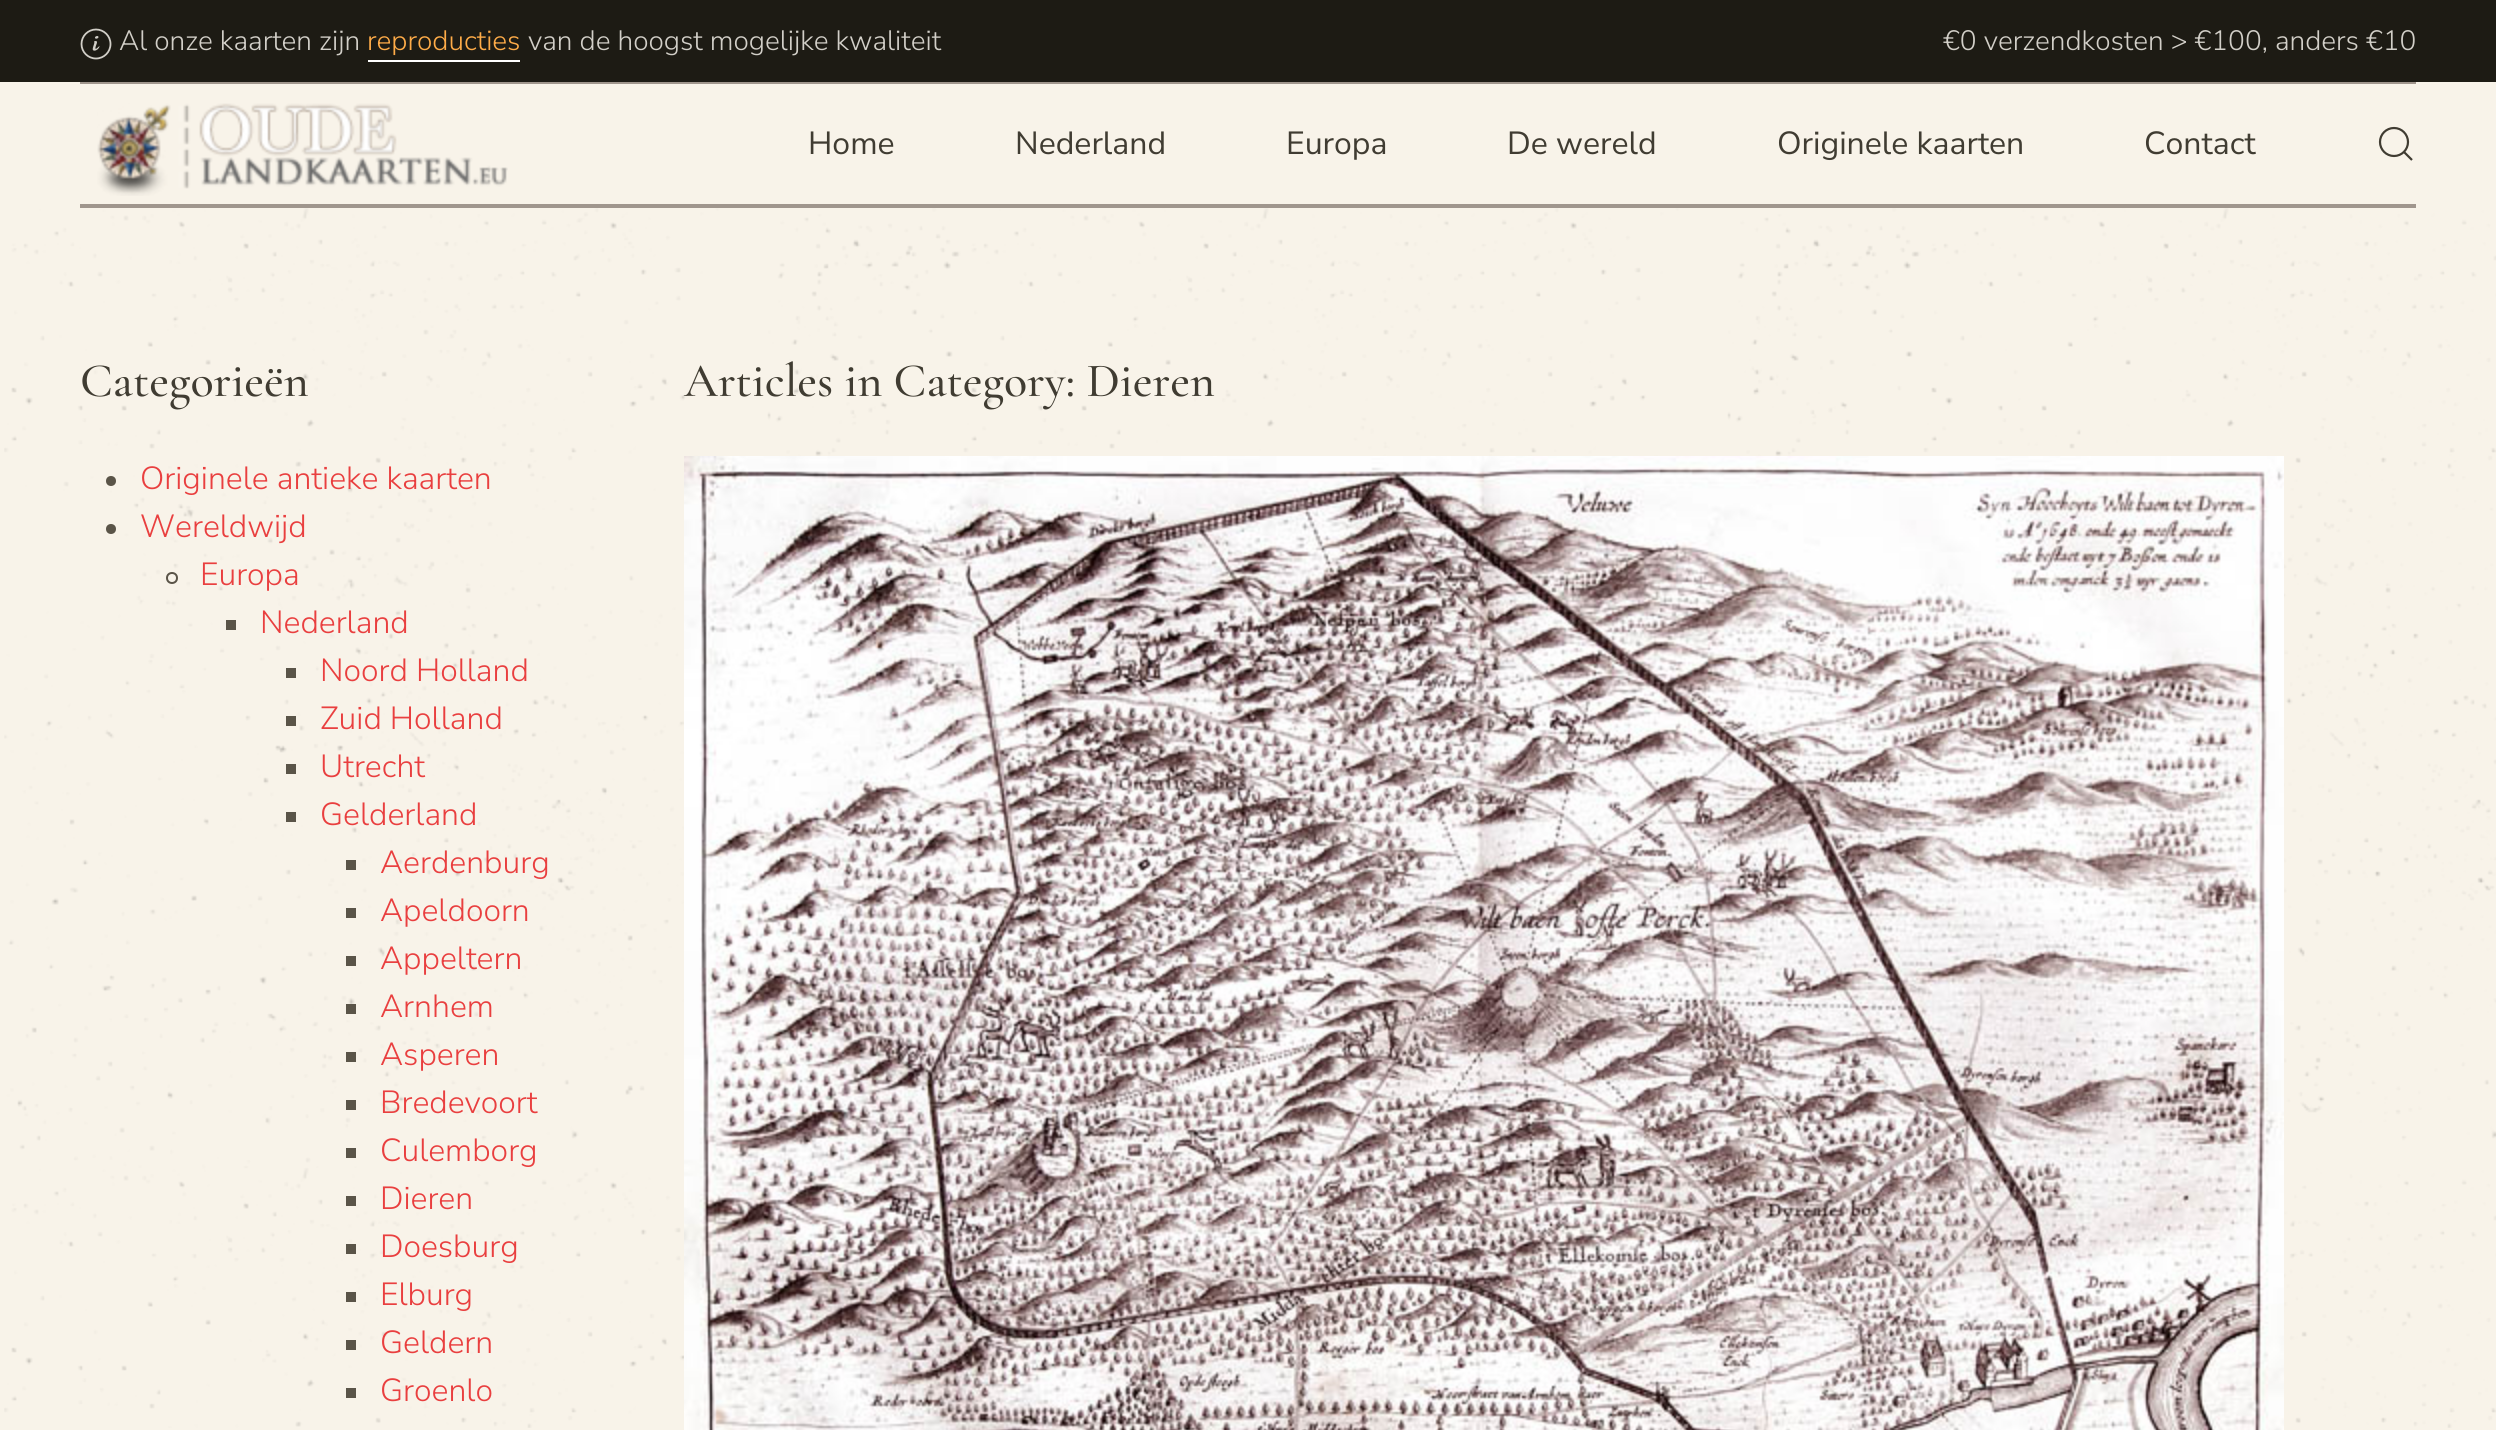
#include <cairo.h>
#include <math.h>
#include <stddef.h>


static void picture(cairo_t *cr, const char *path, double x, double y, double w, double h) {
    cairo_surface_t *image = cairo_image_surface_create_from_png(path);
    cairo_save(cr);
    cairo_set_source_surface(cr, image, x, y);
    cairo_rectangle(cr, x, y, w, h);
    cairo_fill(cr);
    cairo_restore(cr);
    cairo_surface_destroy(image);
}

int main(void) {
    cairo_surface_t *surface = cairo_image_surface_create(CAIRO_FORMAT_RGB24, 2496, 1430);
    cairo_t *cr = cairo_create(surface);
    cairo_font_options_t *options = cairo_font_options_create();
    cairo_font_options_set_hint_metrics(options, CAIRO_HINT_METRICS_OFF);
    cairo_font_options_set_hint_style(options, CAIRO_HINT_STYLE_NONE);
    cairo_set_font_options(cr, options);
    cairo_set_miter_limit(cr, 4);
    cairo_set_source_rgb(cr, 0.969, 0.953, 0.914);
    cairo_paint(cr);
    cairo_set_source_rgb(cr, 0.114, 0.106, 0.082);
    cairo_rectangle(cr, 0, 0, 2496, 82);
    cairo_fill(cr);
    picture(cr, "img1.png", 80, 28, 32, 32);
    cairo_select_font_face(cr, "Nunito Sans ExtraLight", CAIRO_FONT_SLANT_NORMAL, CAIRO_FONT_WEIGHT_NORMAL);
    cairo_set_font_size(cr, 28);
    cairo_set_source_rgb(cr, 0.824, 0.812, 0.784);
    cairo_move_to(cr, 119, 50);
    cairo_show_text(cr, "Al onze kaarten zijn");
    cairo_set_source_rgb(cr, 1, 0.675, 0.282);
    cairo_move_to(cr, 367, 50);
    cairo_show_text(cr, "reproducties");
    cairo_set_source_rgb(cr, 1, 1, 1);
    cairo_rectangle(cr, 368, 60, 152, 2);
    cairo_fill(cr);
    cairo_set_source_rgb(cr, 0.824, 0.812, 0.784);
    cairo_move_to(cr, 528, 50);
    cairo_show_text(cr, "van de hoogst mogelijke kwaliteit");
    cairo_move_to(cr, 1943, 50);
    cairo_show_text(cr, "€0 verzendkosten > €100, anders €10");
    cairo_set_source_rgb(cr, 0.627, 0.588, 0.553);
    cairo_rectangle(cr, 80, 82, 2336, 2);
    cairo_fill(cr);
    cairo_rectangle(cr, 80, 204, 2336, 4);
    cairo_fill(cr);
    picture(cr, "img2.png", 97, 103, 411, 93);
    cairo_select_font_face(cr, "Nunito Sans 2 ExtraLight", CAIRO_FONT_SLANT_NORMAL, CAIRO_FONT_WEIGHT_NORMAL);
    cairo_set_font_size(cr, 32);
    cairo_set_source_rgb(cr, 0.251, 0.235, 0.196);
    cairo_move_to(cr, 808, 154);
    cairo_show_text(cr, "Home");
    cairo_move_to(cr, 1015, 154);
    cairo_show_text(cr, "Nederland");
    cairo_move_to(cr, 1286, 154);
    cairo_show_text(cr, "Europa");
    cairo_move_to(cr, 1507, 154);
    cairo_show_text(cr, "De wereld");
    cairo_move_to(cr, 1777, 154);
    cairo_show_text(cr, "Originele kaarten");
    cairo_move_to(cr, 2144, 154);
    cairo_show_text(cr, "Contact");
    cairo_new_path(cr);
    cairo_arc(cr, 2394, 142, 14, 0, 2 * M_PI);
    cairo_set_line_width(cr, 2.2);
    cairo_stroke(cr);
    cairo_new_path(cr);
    cairo_move_to(cr, 2404, 152);
    cairo_line_to(cr, 2412, 160);
    cairo_close_path(cr);
    cairo_stroke(cr);
    picture(cr, "img3.png", 4, 208, 2492, 1220);
    cairo_select_font_face(cr, "Cormorant Garamond Light", CAIRO_FONT_SLANT_NORMAL, CAIRO_FONT_WEIGHT_NORMAL);
    cairo_set_font_size(cr, 48);
    cairo_move_to(cr, 80, 396);
    cairo_show_text(cr, "Categorieën");
    cairo_set_source_rgb(cr, 0.353, 0.329, 0.282);
    cairo_new_path(cr);
    cairo_arc(cr, 111, 481, 5, 0, 2 * M_PI);
    cairo_fill(cr);
    cairo_select_font_face(cr, "Nunito Sans ExtraLight", CAIRO_FONT_SLANT_NORMAL, CAIRO_FONT_WEIGHT_NORMAL);
    cairo_set_font_size(cr, 32);
    cairo_set_source_rgb(cr, 0.914, 0.247, 0.247);
    cairo_move_to(cr, 140, 489);
    cairo_show_text(cr, "Originele antieke kaarten");
    cairo_set_source_rgb(cr, 0.353, 0.329, 0.282);
    cairo_new_path(cr);
    cairo_arc(cr, 111, 529, 5, 0, 2 * M_PI);
    cairo_fill(cr);
    cairo_set_source_rgb(cr, 0.914, 0.247, 0.247);
    cairo_move_to(cr, 140, 537);
    cairo_show_text(cr, "Wereldwijd");
    cairo_new_path(cr);
    cairo_arc(cr, 172, 578, 5, 0, 2 * M_PI);
    cairo_set_source_rgb(cr, 0.353, 0.329, 0.282);
    cairo_set_line_width(cr, 2);
    cairo_stroke(cr);
    cairo_set_source_rgb(cr, 0.914, 0.247, 0.247);
    cairo_move_to(cr, 200, 585);
    cairo_show_text(cr, "Europa");
    cairo_set_source_rgb(cr, 0.353, 0.329, 0.282);
    cairo_rectangle(cr, 226, 620, 10, 10);
    cairo_fill(cr);
    cairo_set_source_rgb(cr, 0.914, 0.247, 0.247);
    cairo_move_to(cr, 260, 633);
    cairo_show_text(cr, "Nederland");
    cairo_set_source_rgb(cr, 0.353, 0.329, 0.282);
    cairo_rectangle(cr, 286, 668, 10, 10);
    cairo_fill(cr);
    cairo_set_source_rgb(cr, 0.914, 0.247, 0.247);
    cairo_move_to(cr, 320, 681);
    cairo_show_text(cr, "Noord Holland");
    cairo_set_source_rgb(cr, 0.353, 0.329, 0.282);
    cairo_rectangle(cr, 286, 716, 10, 10);
    cairo_fill(cr);
    cairo_set_source_rgb(cr, 0.914, 0.247, 0.247);
    cairo_move_to(cr, 320, 729);
    cairo_show_text(cr, "Zuid Holland");
    cairo_set_source_rgb(cr, 0.353, 0.329, 0.282);
    cairo_rectangle(cr, 286, 764, 10, 10);
    cairo_fill(cr);
    cairo_set_source_rgb(cr, 0.914, 0.247, 0.247);
    cairo_move_to(cr, 320, 777);
    cairo_show_text(cr, "Utrecht");
    cairo_set_source_rgb(cr, 0.353, 0.329, 0.282);
    cairo_rectangle(cr, 286, 812, 10, 10);
    cairo_fill(cr);
    cairo_set_source_rgb(cr, 0.914, 0.247, 0.247);
    cairo_move_to(cr, 320, 825);
    cairo_show_text(cr, "Gelderland");
    cairo_set_source_rgb(cr, 0.353, 0.329, 0.282);
    cairo_rectangle(cr, 346, 860, 10, 10);
    cairo_fill(cr);
    cairo_set_source_rgb(cr, 0.914, 0.247, 0.247);
    cairo_move_to(cr, 380, 873);
    cairo_show_text(cr, "Aerdenburg");
    cairo_set_source_rgb(cr, 0.353, 0.329, 0.282);
    cairo_rectangle(cr, 346, 908, 10, 10);
    cairo_fill(cr);
    cairo_set_source_rgb(cr, 0.914, 0.247, 0.247);
    cairo_move_to(cr, 380, 921);
    cairo_show_text(cr, "Apeldoorn");
    cairo_set_source_rgb(cr, 0.353, 0.329, 0.282);
    cairo_rectangle(cr, 346, 956, 10, 10);
    cairo_fill(cr);
    cairo_set_source_rgb(cr, 0.914, 0.247, 0.247);
    cairo_move_to(cr, 380, 969);
    cairo_show_text(cr, "Appeltern");
    cairo_set_source_rgb(cr, 0.353, 0.329, 0.282);
    cairo_rectangle(cr, 346, 1004, 10, 10);
    cairo_fill(cr);
    cairo_set_source_rgb(cr, 0.914, 0.247, 0.247);
    cairo_move_to(cr, 380, 1017);
    cairo_show_text(cr, "Arnhem");
    cairo_set_source_rgb(cr, 0.353, 0.329, 0.282);
    cairo_rectangle(cr, 346, 1052, 10, 10);
    cairo_fill(cr);
    cairo_set_source_rgb(cr, 0.914, 0.247, 0.247);
    cairo_move_to(cr, 380, 1065);
    cairo_show_text(cr, "Asperen");
    cairo_set_source_rgb(cr, 0.353, 0.329, 0.282);
    cairo_rectangle(cr, 346, 1100, 10, 10);
    cairo_fill(cr);
    cairo_set_source_rgb(cr, 0.914, 0.247, 0.247);
    cairo_move_to(cr, 380, 1113);
    cairo_show_text(cr, "Bredevoort");
    cairo_set_source_rgb(cr, 0.353, 0.329, 0.282);
    cairo_rectangle(cr, 346, 1148, 10, 10);
    cairo_fill(cr);
    cairo_set_source_rgb(cr, 0.914, 0.247, 0.247);
    cairo_move_to(cr, 380, 1161);
    cairo_show_text(cr, "Culemborg");
    cairo_set_source_rgb(cr, 0.353, 0.329, 0.282);
    cairo_rectangle(cr, 346, 1196, 10, 10);
    cairo_fill(cr);
    cairo_set_source_rgb(cr, 0.914, 0.247, 0.247);
    cairo_move_to(cr, 380, 1209);
    cairo_show_text(cr, "Dieren");
    cairo_set_source_rgb(cr, 0.353, 0.329, 0.282);
    cairo_rectangle(cr, 346, 1244, 10, 10);
    cairo_fill(cr);
    cairo_set_source_rgb(cr, 0.914, 0.247, 0.247);
    cairo_move_to(cr, 380, 1257);
    cairo_show_text(cr, "Doesburg");
    cairo_set_source_rgb(cr, 0.353, 0.329, 0.282);
    cairo_rectangle(cr, 346, 1292, 10, 10);
    cairo_fill(cr);
    cairo_set_source_rgb(cr, 0.914, 0.247, 0.247);
    cairo_move_to(cr, 380, 1305);
    cairo_show_text(cr, "Elburg");
    cairo_set_source_rgb(cr, 0.353, 0.329, 0.282);
    cairo_rectangle(cr, 346, 1340, 10, 10);
    cairo_fill(cr);
    cairo_set_source_rgb(cr, 0.914, 0.247, 0.247);
    cairo_move_to(cr, 380, 1353);
    cairo_show_text(cr, "Geldern");
    cairo_set_source_rgb(cr, 0.353, 0.329, 0.282);
    cairo_rectangle(cr, 346, 1388, 10, 10);
    cairo_fill(cr);
    cairo_set_source_rgb(cr, 0.914, 0.247, 0.247);
    cairo_move_to(cr, 380, 1401);
    cairo_show_text(cr, "Groenlo");
    cairo_select_font_face(cr, "Cormorant Garamond Light", CAIRO_FONT_SLANT_NORMAL, CAIRO_FONT_WEIGHT_NORMAL);
    cairo_set_font_size(cr, 48);
    cairo_set_source_rgb(cr, 0.251, 0.235, 0.196);
    cairo_move_to(cr, 684, 396);
    cairo_show_text(cr, "Articles in Category: Dieren");
    picture(cr, "img4.png", 684, 456, 1600, 974);
    cairo_surface_write_to_png(surface, "page.png");
    cairo_font_options_destroy(options);
    cairo_destroy(cr);
    cairo_surface_destroy(surface);
    return 0;
}
